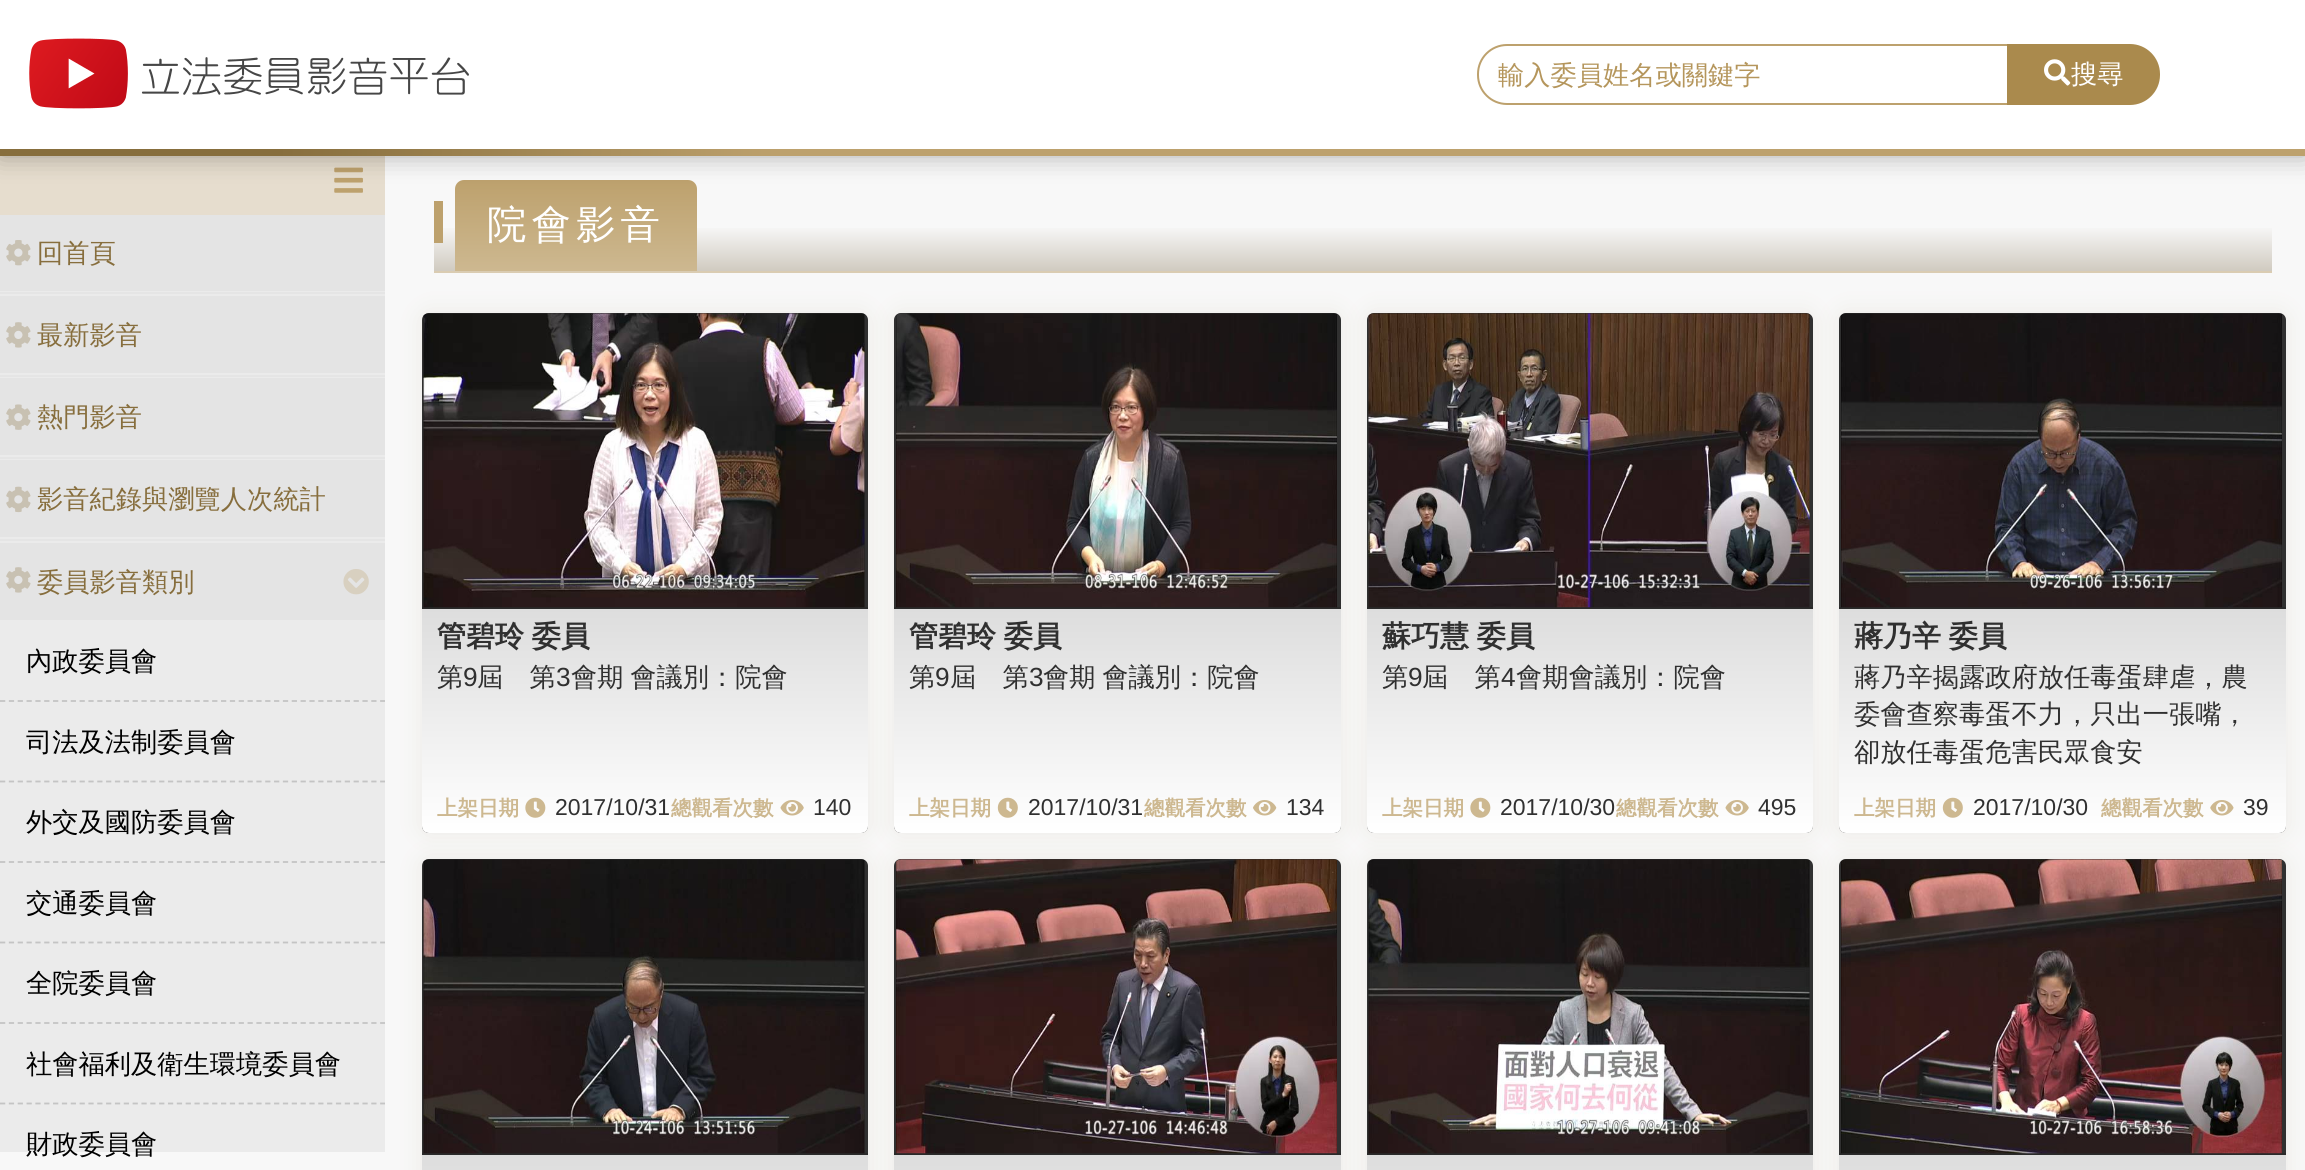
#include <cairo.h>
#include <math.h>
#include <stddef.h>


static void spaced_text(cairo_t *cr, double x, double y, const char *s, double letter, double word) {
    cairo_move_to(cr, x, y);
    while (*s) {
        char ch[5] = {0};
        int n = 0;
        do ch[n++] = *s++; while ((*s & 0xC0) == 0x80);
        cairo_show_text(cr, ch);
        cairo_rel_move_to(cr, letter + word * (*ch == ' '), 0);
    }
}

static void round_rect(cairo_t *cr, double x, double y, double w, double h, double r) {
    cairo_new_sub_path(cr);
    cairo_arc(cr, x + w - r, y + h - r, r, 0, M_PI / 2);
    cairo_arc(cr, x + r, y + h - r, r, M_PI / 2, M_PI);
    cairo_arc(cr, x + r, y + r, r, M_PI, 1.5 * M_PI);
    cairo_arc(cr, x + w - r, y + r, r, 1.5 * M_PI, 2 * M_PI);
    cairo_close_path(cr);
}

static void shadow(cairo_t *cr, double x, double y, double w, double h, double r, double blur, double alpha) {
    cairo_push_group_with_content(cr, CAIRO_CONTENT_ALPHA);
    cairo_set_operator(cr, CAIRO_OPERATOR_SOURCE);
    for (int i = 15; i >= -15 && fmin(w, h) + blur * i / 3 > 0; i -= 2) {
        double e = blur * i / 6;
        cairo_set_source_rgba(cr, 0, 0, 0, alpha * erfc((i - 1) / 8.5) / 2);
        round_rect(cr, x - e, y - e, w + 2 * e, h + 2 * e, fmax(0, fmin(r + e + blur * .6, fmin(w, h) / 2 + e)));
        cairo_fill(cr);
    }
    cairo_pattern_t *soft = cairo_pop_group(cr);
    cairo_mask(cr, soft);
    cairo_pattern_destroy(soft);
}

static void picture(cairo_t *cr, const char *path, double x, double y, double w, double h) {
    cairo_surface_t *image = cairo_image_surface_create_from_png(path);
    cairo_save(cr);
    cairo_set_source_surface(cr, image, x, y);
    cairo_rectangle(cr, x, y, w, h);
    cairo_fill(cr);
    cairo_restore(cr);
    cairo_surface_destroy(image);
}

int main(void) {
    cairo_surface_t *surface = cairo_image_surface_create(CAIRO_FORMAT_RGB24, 2305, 1170);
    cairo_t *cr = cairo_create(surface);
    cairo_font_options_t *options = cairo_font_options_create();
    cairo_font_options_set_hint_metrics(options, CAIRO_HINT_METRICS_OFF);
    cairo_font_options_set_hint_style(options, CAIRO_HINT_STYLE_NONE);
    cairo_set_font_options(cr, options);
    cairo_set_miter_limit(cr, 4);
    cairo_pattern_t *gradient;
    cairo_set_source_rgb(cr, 0.969, 0.969, 0.969);
    cairo_paint(cr);
    cairo_set_source_rgb(cr, 0.902, 0.867, 0.808);
    cairo_rectangle(cr, 0, 156, 385, 59);
    cairo_fill(cr);
    picture(cr, "img3.png", 334, 167, 29, 26);
    gradient = cairo_pattern_create_linear(1353, 180, 1353, 271);
    cairo_pattern_add_color_stop_rgba(gradient, 0.5, 0.973, 0.973, 0.973, 1);
    cairo_pattern_add_color_stop_rgba(gradient, 1, 0.816, 0.796, 0.753, 1);
    cairo_set_source(cr, gradient);
    cairo_pattern_destroy(gradient);
    cairo_rectangle(cr, 434, 228, 1838, 43);
    cairo_fill(cr);
    gradient = cairo_pattern_create_linear(576, 180, 576, 271);
    cairo_pattern_add_color_stop_rgba(gradient, 0, 0.741, 0.631, 0.427, 1);
    cairo_pattern_add_color_stop_rgba(gradient, 1, 0.804, 0.722, 0.565, 1);
    cairo_set_source(cr, gradient);
    cairo_pattern_destroy(gradient);
    cairo_new_path(cr);
    cairo_move_to(cr, 464, 180);
    cairo_line_to(cr, 688, 180);
    cairo_curve_to(cr, 693, 180, 697, 184, 697, 189);
    cairo_line_to(cr, 697, 271);
    cairo_line_to(cr, 455, 271);
    cairo_line_to(cr, 455, 189);
    cairo_curve_to(cr, 455, 184, 459, 180, 464, 180);
    cairo_close_path(cr);
    cairo_fill(cr);
    cairo_set_source_rgb(cr, 0, 0, 0);
    shadow(cr, 0, 0, 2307, 156, 0, 13, 0.3);
    gradient = cairo_pattern_create_linear(0, 78, 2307, 78);
    cairo_pattern_add_color_stop_rgba(gradient, 0.12, 0.529, 0.431, 0.239, 1);
    cairo_pattern_add_color_stop_rgba(gradient, 0.34, 0.741, 0.631, 0.427, 1);
    cairo_set_source(cr, gradient);
    cairo_pattern_destroy(gradient);
    cairo_rectangle(cr, 0, 149, 2305, 7);
    cairo_fill(cr);
    cairo_set_source_rgb(cr, 1, 1, 1);
    cairo_rectangle(cr, 0, 0, 2305, 149);
    cairo_fill(cr);
    picture(cr, "img1.png", 29, 38, 440, 71);
    cairo_new_path(cr);
    cairo_move_to(cr, 1507, 45);
    cairo_line_to(cr, 2008, 45);
    cairo_line_to(cr, 2008, 104);
    cairo_line_to(cr, 1507, 104);
    cairo_curve_to(cr, 1491, 104, 1478, 91, 1478, 75);
    cairo_line_to(cr, 1478, 74);
    cairo_curve_to(cr, 1478, 58, 1491, 45, 1507, 45);
    cairo_close_path(cr);
    cairo_set_source_rgb(cr, 0.741, 0.631, 0.427);
    cairo_stroke(cr);
    cairo_select_font_face(cr, "WenQuanYi Zen Hei Medium", CAIRO_FONT_SLANT_NORMAL, CAIRO_FONT_WEIGHT_NORMAL);
    cairo_set_font_size(cr, 26.25);
    cairo_set_source_rgb(cr, 0.71, 0.588, 0.361);
    cairo_move_to(cr, 1498, 84);
    cairo_show_text(cr, "輸入委員姓名或關鍵字");
    cairo_set_source_rgb(cr, 0.667, 0.541, 0.302);
    cairo_new_path(cr);
    cairo_move_to(cr, 2007, 44);
    cairo_line_to(cr, 2130, 44);
    cairo_curve_to(cr, 2146.5, 44, 2160, 57.5, 2160, 74);
    cairo_line_to(cr, 2160, 75);
    cairo_curve_to(cr, 2160, 91.5, 2146.5, 105, 2130, 105);
    cairo_line_to(cr, 2007, 105);
    cairo_close_path(cr);
    cairo_fill(cr);
    picture(cr, "img2.png", 2044, 59, 27, 27);
    cairo_set_source_rgb(cr, 1, 1, 1);
    cairo_move_to(cr, 2071, 83);
    cairo_show_text(cr, "搜尋");
    cairo_set_source_rgb(cr, 0.918, 0.918, 0.918);
    cairo_rectangle(cr, 0, 291, 385, 861);
    cairo_fill(cr);
    cairo_set_source_rgb(cr, 0.898, 0.898, 0.898);
    cairo_rectangle(cr, 0, 292, 385, 2);
    cairo_fill(cr);
    cairo_set_source_rgb(cr, 0.894, 0.894, 0.894);
    cairo_rectangle(cr, 0, 215, 385, 76);
    cairo_fill(cr);
    picture(cr, "img4.png", 6, 240, 25, 26);
    cairo_set_source_rgb(cr, 0.529, 0.431, 0.239);
    cairo_move_to(cr, 37, 262);
    cairo_show_text(cr, "回首頁");
    cairo_set_source_rgb(cr, 0.898, 0.898, 0.898);
    cairo_rectangle(cr, 0, 375, 385, 2);
    cairo_fill(cr);
    cairo_set_source_rgb(cr, 0.894, 0.894, 0.894);
    cairo_rectangle(cr, 0, 296, 385, 77);
    cairo_fill(cr);
    picture(cr, "img5.png", 6, 322, 25, 26);
    cairo_set_source_rgb(cr, 0.529, 0.431, 0.239);
    cairo_move_to(cr, 37, 344);
    cairo_show_text(cr, "最新影音");
    cairo_set_source_rgb(cr, 0.898, 0.898, 0.898);
    cairo_rectangle(cr, 0, 457, 385, 2);
    cairo_fill(cr);
    cairo_set_source_rgb(cr, 0.894, 0.894, 0.894);
    cairo_rectangle(cr, 0, 378, 385, 77);
    cairo_fill(cr);
    picture(cr, "img6.png", 6, 404, 25, 26);
    cairo_set_source_rgb(cr, 0.529, 0.431, 0.239);
    cairo_move_to(cr, 37, 426);
    cairo_show_text(cr, "熱門影音");
    cairo_set_source_rgb(cr, 0.898, 0.898, 0.898);
    cairo_rectangle(cr, 0, 539, 385, 2);
    cairo_fill(cr);
    cairo_set_source_rgb(cr, 0.894, 0.894, 0.894);
    cairo_rectangle(cr, 0, 460, 385, 77);
    cairo_fill(cr);
    picture(cr, "img7.png", 6, 486, 25, 27);
    cairo_set_source_rgb(cr, 0.529, 0.431, 0.239);
    cairo_move_to(cr, 37, 508);
    cairo_show_text(cr, "影音紀錄與瀏覽人次統計");
    cairo_set_source_rgb(cr, 0.894, 0.894, 0.894);
    cairo_rectangle(cr, 0, 543, 385, 77);
    cairo_fill(cr);
    picture(cr, "img5.png", 6, 567, 25, 26);
    cairo_set_source_rgb(cr, 0.529, 0.431, 0.239);
    cairo_move_to(cr, 37, 591);
    cairo_show_text(cr, "委員影音類別");
    picture(cr, "img8.png", 343, 569, 26, 26);
    cairo_new_path(cr);
    cairo_move_to(cr, 0, 701);
    cairo_line_to(cr, 385, 701);
    cairo_set_source_rgb(cr, 0.769, 0.769, 0.769);
    cairo_set_line_width(cr, 1.8);
    cairo_set_dash(cr, (double[]){5.25, 3.59}, 2, 0);
    cairo_stroke(cr);
    cairo_set_source_rgb(cr, 0, 0, 0);
    cairo_move_to(cr, 26, 670);
    cairo_show_text(cr, "內政委員會");
    cairo_new_path(cr);
    cairo_move_to(cr, 0, 781.5);
    cairo_line_to(cr, 385, 781.5);
    cairo_set_source_rgb(cr, 0.769, 0.769, 0.769);
    cairo_stroke(cr);
    cairo_set_source_rgb(cr, 0, 0, 0);
    cairo_move_to(cr, 26, 751);
    cairo_show_text(cr, "司法及法制委員會");
    cairo_new_path(cr);
    cairo_move_to(cr, 0, 862);
    cairo_line_to(cr, 385, 862);
    cairo_set_source_rgb(cr, 0.769, 0.769, 0.769);
    cairo_stroke(cr);
    cairo_set_source_rgb(cr, 0, 0, 0);
    cairo_move_to(cr, 26, 831);
    cairo_show_text(cr, "外交及國防委員會");
    cairo_new_path(cr);
    cairo_move_to(cr, 0, 942.5);
    cairo_line_to(cr, 385, 942.5);
    cairo_set_source_rgb(cr, 0.769, 0.769, 0.769);
    cairo_stroke(cr);
    cairo_set_source_rgb(cr, 0, 0, 0);
    cairo_move_to(cr, 26, 912);
    cairo_show_text(cr, "交通委員會");
    cairo_new_path(cr);
    cairo_move_to(cr, 0, 1023);
    cairo_line_to(cr, 385, 1023);
    cairo_set_source_rgb(cr, 0.769, 0.769, 0.769);
    cairo_stroke(cr);
    cairo_set_source_rgb(cr, 0, 0, 0);
    cairo_move_to(cr, 26, 992);
    cairo_show_text(cr, "全院委員會");
    cairo_new_path(cr);
    cairo_move_to(cr, 0, 1103.5);
    cairo_line_to(cr, 385, 1103.5);
    cairo_set_source_rgb(cr, 0.769, 0.769, 0.769);
    cairo_stroke(cr);
    cairo_set_source_rgb(cr, 0, 0, 0);
    cairo_move_to(cr, 26, 1073);
    cairo_show_text(cr, "社會福利及衛生環境委員會");
    cairo_move_to(cr, 26, 1153);
    cairo_show_text(cr, "財政委員會");
    cairo_set_source_rgb(cr, 0.855, 0.8, 0.698);
    cairo_rectangle(cr, 434, 271, 1838, 2);
    cairo_fill(cr);
    cairo_set_source_rgb(cr, 0.741, 0.631, 0.427);
    cairo_rectangle(cr, 434, 201, 9, 42);
    cairo_fill(cr);
    cairo_set_font_size(cr, 39.5);
    cairo_set_source_rgb(cr, 1, 1, 1);
    spaced_text(cr, 487, 238, "院會影音", 5, 0);
    cairo_set_source_rgb(cr, 0.529, 0.431, 0.239);
    shadow(cr, 422, 313, 446, 520, 7, 12, 0.1);
    cairo_set_source_rgb(cr, 0.188, 0.188, 0.188);
    round_rect(cr, 422, 313, 446, 520, 7);
    cairo_fill(cr);
    picture(cr, "img9.png", 423, 313, 442, 295);
    cairo_set_source_rgba(cr, 0, 0, 0, 0.12);
    cairo_rectangle(cr, 422, 607, 446, 2);
    cairo_fill(cr);
    gradient = cairo_pattern_create_linear(645, 609, 645, 833);
    cairo_pattern_add_color_stop_rgba(gradient, 0, 0.867, 0.867, 0.867, 1);
    cairo_pattern_add_color_stop_rgba(gradient, 1, 1, 1, 1, 1);
    cairo_set_source(cr, gradient);
    cairo_pattern_destroy(gradient);
    cairo_new_path(cr);
    cairo_move_to(cr, 422, 609);
    cairo_line_to(cr, 868, 609);
    cairo_line_to(cr, 868, 826);
    cairo_curve_to(cr, 868, 830, 865, 833, 861, 833);
    cairo_line_to(cr, 429, 833);
    cairo_curve_to(cr, 425, 833, 422, 830, 422, 826);
    cairo_close_path(cr);
    cairo_fill(cr);
    cairo_select_font_face(cr, "WenQuanYi Zen Hei", CAIRO_FONT_SLANT_NORMAL, CAIRO_FONT_WEIGHT_BOLD);
    cairo_set_font_size(cr, 29);
    cairo_set_source_rgb(cr, 0.188, 0.188, 0.188);
    spaced_text(cr, 437, 646, "管碧玲 委員", 0, -1);
    cairo_select_font_face(cr, "WenQuanYi Zen Hei Medium", CAIRO_FONT_SLANT_NORMAL, CAIRO_FONT_WEIGHT_NORMAL);
    cairo_set_font_size(cr, 26.25);
    cairo_move_to(cr, 437, 686);
    cairo_show_text(cr, "第");
    cairo_select_font_face(cr, "Liberation Sans", CAIRO_FONT_SLANT_NORMAL, CAIRO_FONT_WEIGHT_NORMAL);
    cairo_move_to(cr, 463, 686);
    cairo_show_text(cr, "9");
    cairo_select_font_face(cr, "WenQuanYi Zen Hei Medium", CAIRO_FONT_SLANT_NORMAL, CAIRO_FONT_WEIGHT_NORMAL);
    cairo_move_to(cr, 477, 686);
    cairo_show_text(cr, "屆　第");
    cairo_select_font_face(cr, "Liberation Sans", CAIRO_FONT_SLANT_NORMAL, CAIRO_FONT_WEIGHT_NORMAL);
    cairo_move_to(cr, 556, 686);
    cairo_show_text(cr, "3");
    cairo_select_font_face(cr, "WenQuanYi Zen Hei Medium", CAIRO_FONT_SLANT_NORMAL, CAIRO_FONT_WEIGHT_NORMAL);
    spaced_text(cr, 571, 686, "會期 會議別：院會", 0, -1);
    picture(cr, "img10.png", 525, 797, 21, 21);
    cairo_select_font_face(cr, "WenQuanYi Zen Hei", CAIRO_FONT_SLANT_NORMAL, CAIRO_FONT_WEIGHT_BOLD);
    cairo_set_font_size(cr, 20.5);
    cairo_set_source_rgb(cr, 0.804, 0.722, 0.565);
    cairo_move_to(cr, 437, 815);
    cairo_show_text(cr, "上架日期");
    cairo_select_font_face(cr, "Liberation Sans", CAIRO_FONT_SLANT_NORMAL, CAIRO_FONT_WEIGHT_NORMAL);
    cairo_set_font_size(cr, 23);
    cairo_set_source_rgb(cr, 0.188, 0.188, 0.188);
    cairo_move_to(cr, 555, 815);
    cairo_show_text(cr, "2017/10/31");
    picture(cr, "img11.png", 780, 800, 24, 16);
    cairo_select_font_face(cr, "WenQuanYi Zen Hei", CAIRO_FONT_SLANT_NORMAL, CAIRO_FONT_WEIGHT_BOLD);
    cairo_set_font_size(cr, 20.5);
    cairo_set_source_rgb(cr, 0.804, 0.722, 0.565);
    cairo_move_to(cr, 671, 815);
    cairo_show_text(cr, "總觀看次數");
    cairo_select_font_face(cr, "Liberation Sans", CAIRO_FONT_SLANT_NORMAL, CAIRO_FONT_WEIGHT_NORMAL);
    cairo_set_font_size(cr, 23);
    cairo_set_source_rgb(cr, 0.188, 0.188, 0.188);
    cairo_move_to(cr, 813, 815);
    cairo_show_text(cr, "140");
    cairo_set_source_rgb(cr, 0.529, 0.431, 0.239);
    shadow(cr, 894, 313, 447, 520, 7, 12, 0.1);
    cairo_set_source_rgb(cr, 0.188, 0.188, 0.188);
    round_rect(cr, 894, 313, 447, 520, 7);
    cairo_fill(cr);
    picture(cr, "img12.png", 896, 313, 441, 295);
    cairo_set_source_rgba(cr, 0, 0, 0, 0.12);
    cairo_rectangle(cr, 894, 607, 447, 2);
    cairo_fill(cr);
    gradient = cairo_pattern_create_linear(1117, 609, 1117, 833);
    cairo_pattern_add_color_stop_rgba(gradient, 0, 0.867, 0.867, 0.867, 1);
    cairo_pattern_add_color_stop_rgba(gradient, 1, 1, 1, 1, 1);
    cairo_set_source(cr, gradient);
    cairo_pattern_destroy(gradient);
    cairo_new_path(cr);
    cairo_move_to(cr, 894, 609);
    cairo_line_to(cr, 1341, 609);
    cairo_line_to(cr, 1341, 826);
    cairo_curve_to(cr, 1341, 830, 1338, 833, 1334, 833);
    cairo_line_to(cr, 901, 833);
    cairo_curve_to(cr, 897, 833, 894, 830, 894, 826);
    cairo_close_path(cr);
    cairo_fill(cr);
    cairo_select_font_face(cr, "WenQuanYi Zen Hei", CAIRO_FONT_SLANT_NORMAL, CAIRO_FONT_WEIGHT_BOLD);
    cairo_set_font_size(cr, 29);
    cairo_set_source_rgb(cr, 0.188, 0.188, 0.188);
    spaced_text(cr, 909, 646, "管碧玲 委員", 0, -1);
    cairo_select_font_face(cr, "WenQuanYi Zen Hei Medium", CAIRO_FONT_SLANT_NORMAL, CAIRO_FONT_WEIGHT_NORMAL);
    cairo_set_font_size(cr, 26.25);
    cairo_move_to(cr, 909, 686);
    cairo_show_text(cr, "第");
    cairo_select_font_face(cr, "Liberation Sans", CAIRO_FONT_SLANT_NORMAL, CAIRO_FONT_WEIGHT_NORMAL);
    cairo_move_to(cr, 935, 686);
    cairo_show_text(cr, "9");
    cairo_select_font_face(cr, "WenQuanYi Zen Hei Medium", CAIRO_FONT_SLANT_NORMAL, CAIRO_FONT_WEIGHT_NORMAL);
    cairo_move_to(cr, 950, 686);
    cairo_show_text(cr, "屆　第");
    cairo_select_font_face(cr, "Liberation Sans", CAIRO_FONT_SLANT_NORMAL, CAIRO_FONT_WEIGHT_NORMAL);
    cairo_move_to(cr, 1029, 686);
    cairo_show_text(cr, "3");
    cairo_select_font_face(cr, "WenQuanYi Zen Hei Medium", CAIRO_FONT_SLANT_NORMAL, CAIRO_FONT_WEIGHT_NORMAL);
    spaced_text(cr, 1043, 686, "會期 會議別：院會", 0, -1);
    picture(cr, "img13.png", 997, 797, 21, 21);
    cairo_select_font_face(cr, "WenQuanYi Zen Hei", CAIRO_FONT_SLANT_NORMAL, CAIRO_FONT_WEIGHT_BOLD);
    cairo_set_font_size(cr, 20.5);
    cairo_set_source_rgb(cr, 0.804, 0.722, 0.565);
    cairo_move_to(cr, 909, 815);
    cairo_show_text(cr, "上架日期");
    cairo_select_font_face(cr, "Liberation Sans", CAIRO_FONT_SLANT_NORMAL, CAIRO_FONT_WEIGHT_NORMAL);
    cairo_set_font_size(cr, 23);
    cairo_set_source_rgb(cr, 0.188, 0.188, 0.188);
    cairo_move_to(cr, 1028, 815);
    cairo_show_text(cr, "2017/10/31");
    picture(cr, "img14.png", 1253, 800, 24, 16);
    cairo_select_font_face(cr, "WenQuanYi Zen Hei", CAIRO_FONT_SLANT_NORMAL, CAIRO_FONT_WEIGHT_BOLD);
    cairo_set_font_size(cr, 20.5);
    cairo_set_source_rgb(cr, 0.804, 0.722, 0.565);
    cairo_move_to(cr, 1144, 815);
    cairo_show_text(cr, "總觀看次數");
    cairo_select_font_face(cr, "Liberation Sans", CAIRO_FONT_SLANT_NORMAL, CAIRO_FONT_WEIGHT_NORMAL);
    cairo_set_font_size(cr, 23);
    cairo_set_source_rgb(cr, 0.188, 0.188, 0.188);
    cairo_move_to(cr, 1286, 815);
    cairo_show_text(cr, "134");
    cairo_set_source_rgb(cr, 0.529, 0.431, 0.239);
    shadow(cr, 1367, 313, 446, 520, 7, 12, 0.1);
    cairo_set_source_rgb(cr, 0.188, 0.188, 0.188);
    round_rect(cr, 1367, 313, 446, 520, 7);
    cairo_fill(cr);
    picture(cr, "img15.png", 1368, 313, 442, 295);
    cairo_set_source_rgba(cr, 0, 0, 0, 0.12);
    cairo_rectangle(cr, 1367, 607, 446, 2);
    cairo_fill(cr);
    gradient = cairo_pattern_create_linear(1590, 609, 1590, 833);
    cairo_pattern_add_color_stop_rgba(gradient, 0, 0.867, 0.867, 0.867, 1);
    cairo_pattern_add_color_stop_rgba(gradient, 1, 1, 1, 1, 1);
    cairo_set_source(cr, gradient);
    cairo_pattern_destroy(gradient);
    cairo_new_path(cr);
    cairo_move_to(cr, 1367, 609);
    cairo_line_to(cr, 1813, 609);
    cairo_line_to(cr, 1813, 826);
    cairo_curve_to(cr, 1813, 830, 1810, 833, 1806, 833);
    cairo_line_to(cr, 1374, 833);
    cairo_curve_to(cr, 1370, 833, 1367, 830, 1367, 826);
    cairo_close_path(cr);
    cairo_fill(cr);
    cairo_select_font_face(cr, "WenQuanYi Zen Hei", CAIRO_FONT_SLANT_NORMAL, CAIRO_FONT_WEIGHT_BOLD);
    cairo_set_font_size(cr, 29);
    cairo_set_source_rgb(cr, 0.188, 0.188, 0.188);
    spaced_text(cr, 1382, 646, "蘇巧慧 委員", 0, -1);
    cairo_select_font_face(cr, "WenQuanYi Zen Hei Medium", CAIRO_FONT_SLANT_NORMAL, CAIRO_FONT_WEIGHT_NORMAL);
    cairo_set_font_size(cr, 26.25);
    cairo_move_to(cr, 1382, 686);
    cairo_show_text(cr, "第");
    cairo_select_font_face(cr, "Liberation Sans", CAIRO_FONT_SLANT_NORMAL, CAIRO_FONT_WEIGHT_NORMAL);
    cairo_move_to(cr, 1408, 686);
    cairo_show_text(cr, "9");
    cairo_select_font_face(cr, "WenQuanYi Zen Hei Medium", CAIRO_FONT_SLANT_NORMAL, CAIRO_FONT_WEIGHT_NORMAL);
    cairo_move_to(cr, 1422, 686);
    cairo_show_text(cr, "屆　第");
    cairo_select_font_face(cr, "Liberation Sans", CAIRO_FONT_SLANT_NORMAL, CAIRO_FONT_WEIGHT_NORMAL);
    cairo_move_to(cr, 1501, 686);
    cairo_show_text(cr, "4");
    cairo_select_font_face(cr, "WenQuanYi Zen Hei Medium", CAIRO_FONT_SLANT_NORMAL, CAIRO_FONT_WEIGHT_NORMAL);
    cairo_move_to(cr, 1516, 686);
    cairo_show_text(cr, "會期會議別：院會");
    picture(cr, "img10.png", 1470, 797, 21, 21);
    cairo_select_font_face(cr, "WenQuanYi Zen Hei", CAIRO_FONT_SLANT_NORMAL, CAIRO_FONT_WEIGHT_BOLD);
    cairo_set_font_size(cr, 20.5);
    cairo_set_source_rgb(cr, 0.804, 0.722, 0.565);
    cairo_move_to(cr, 1382, 815);
    cairo_show_text(cr, "上架日期");
    cairo_select_font_face(cr, "Liberation Sans", CAIRO_FONT_SLANT_NORMAL, CAIRO_FONT_WEIGHT_NORMAL);
    cairo_set_font_size(cr, 23);
    cairo_set_source_rgb(cr, 0.188, 0.188, 0.188);
    cairo_move_to(cr, 1500, 815);
    cairo_show_text(cr, "2017/10/30");
    picture(cr, "img11.png", 1725, 800, 24, 16);
    cairo_select_font_face(cr, "WenQuanYi Zen Hei", CAIRO_FONT_SLANT_NORMAL, CAIRO_FONT_WEIGHT_BOLD);
    cairo_set_font_size(cr, 20.5);
    cairo_set_source_rgb(cr, 0.804, 0.722, 0.565);
    cairo_move_to(cr, 1616, 815);
    cairo_show_text(cr, "總觀看次數");
    cairo_select_font_face(cr, "Liberation Sans", CAIRO_FONT_SLANT_NORMAL, CAIRO_FONT_WEIGHT_NORMAL);
    cairo_set_font_size(cr, 23);
    cairo_set_source_rgb(cr, 0.188, 0.188, 0.188);
    cairo_move_to(cr, 1758, 815);
    cairo_show_text(cr, "495");
    cairo_set_source_rgb(cr, 0.529, 0.431, 0.239);
    shadow(cr, 1839, 313, 447, 520, 7, 12, 0.1);
    cairo_set_source_rgb(cr, 0.188, 0.188, 0.188);
    round_rect(cr, 1839, 313, 447, 520, 7);
    cairo_fill(cr);
    picture(cr, "img16.png", 1841, 313, 441, 295);
    cairo_set_source_rgba(cr, 0, 0, 0, 0.12);
    cairo_rectangle(cr, 1839, 607, 447, 2);
    cairo_fill(cr);
    gradient = cairo_pattern_create_linear(2062, 609, 2062, 833);
    cairo_pattern_add_color_stop_rgba(gradient, 0, 0.867, 0.867, 0.867, 1);
    cairo_pattern_add_color_stop_rgba(gradient, 1, 1, 1, 1, 1);
    cairo_set_source(cr, gradient);
    cairo_pattern_destroy(gradient);
    cairo_new_path(cr);
    cairo_move_to(cr, 1839, 609);
    cairo_line_to(cr, 2286, 609);
    cairo_line_to(cr, 2286, 826);
    cairo_curve_to(cr, 2286, 830, 2283, 833, 2279, 833);
    cairo_line_to(cr, 1846, 833);
    cairo_curve_to(cr, 1842, 833, 1839, 830, 1839, 826);
    cairo_close_path(cr);
    cairo_fill(cr);
    cairo_select_font_face(cr, "WenQuanYi Zen Hei", CAIRO_FONT_SLANT_NORMAL, CAIRO_FONT_WEIGHT_BOLD);
    cairo_set_font_size(cr, 29);
    cairo_set_source_rgb(cr, 0.188, 0.188, 0.188);
    spaced_text(cr, 1854, 646, "蔣乃辛 委員", 0, -1);
    cairo_select_font_face(cr, "WenQuanYi Zen Hei Medium", CAIRO_FONT_SLANT_NORMAL, CAIRO_FONT_WEIGHT_NORMAL);
    cairo_set_font_size(cr, 26.25);
    cairo_move_to(cr, 1854, 686);
    cairo_show_text(cr, "蔣乃辛揭露政府放任毒蛋肆虐，農");
    cairo_move_to(cr, 1854, 723);
    cairo_show_text(cr, "委會查察毒蛋不力，只出一張嘴，");
    cairo_move_to(cr, 1854, 761);
    cairo_show_text(cr, "卻放任毒蛋危害民眾食安");
    picture(cr, "img13.png", 1942, 797, 21, 21);
    cairo_select_font_face(cr, "WenQuanYi Zen Hei", CAIRO_FONT_SLANT_NORMAL, CAIRO_FONT_WEIGHT_BOLD);
    cairo_set_font_size(cr, 20.5);
    cairo_set_source_rgb(cr, 0.804, 0.722, 0.565);
    cairo_move_to(cr, 1854, 815);
    cairo_show_text(cr, "上架日期");
    cairo_select_font_face(cr, "Liberation Sans", CAIRO_FONT_SLANT_NORMAL, CAIRO_FONT_WEIGHT_NORMAL);
    cairo_set_font_size(cr, 23);
    cairo_set_source_rgb(cr, 0.188, 0.188, 0.188);
    cairo_move_to(cr, 1973, 815);
    cairo_show_text(cr, "2017/10/30");
    picture(cr, "img17.png", 2210, 800, 24, 16);
    cairo_select_font_face(cr, "WenQuanYi Zen Hei", CAIRO_FONT_SLANT_NORMAL, CAIRO_FONT_WEIGHT_BOLD);
    cairo_set_font_size(cr, 20.5);
    cairo_set_source_rgb(cr, 0.804, 0.722, 0.565);
    cairo_move_to(cr, 2101, 815);
    cairo_show_text(cr, "總觀看次數");
    cairo_select_font_face(cr, "Liberation Sans", CAIRO_FONT_SLANT_NORMAL, CAIRO_FONT_WEIGHT_NORMAL);
    cairo_set_font_size(cr, 23);
    cairo_set_source_rgb(cr, 0.188, 0.188, 0.188);
    cairo_move_to(cr, 2243, 815);
    cairo_show_text(cr, "39");
    cairo_set_source_rgb(cr, 0.529, 0.431, 0.239);
    shadow(cr, 422, 859, 446, 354, 7, 12, 0.1);
    cairo_set_source_rgb(cr, 0.188, 0.188, 0.188);
    cairo_new_path(cr);
    cairo_move_to(cr, 429, 859);
    cairo_line_to(cr, 861, 859);
    cairo_curve_to(cr, 865, 859, 868, 862, 868, 866);
    cairo_line_to(cr, 868, 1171);
    cairo_line_to(cr, 422, 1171);
    cairo_line_to(cr, 422, 866);
    cairo_curve_to(cr, 422, 862, 425, 859, 429, 859);
    cairo_close_path(cr);
    cairo_fill(cr);
    picture(cr, "img18.png", 423, 859, 442, 295);
    cairo_set_source_rgba(cr, 0, 0, 0, 0.12);
    cairo_rectangle(cr, 422, 1153, 446, 2);
    cairo_fill(cr);
    gradient = cairo_pattern_create_linear(645, 1155, 645, 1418);
    cairo_pattern_add_color_stop_rgba(gradient, 0, 0.867, 0.867, 0.867, 1);
    cairo_pattern_add_color_stop_rgba(gradient, 1, 1, 1, 1, 1);
    cairo_set_source(cr, gradient);
    cairo_pattern_destroy(gradient);
    cairo_rectangle(cr, 422, 1155, 446, 15);
    cairo_fill(cr);
    cairo_set_source_rgb(cr, 0.529, 0.431, 0.239);
    shadow(cr, 894, 859, 447, 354, 7, 12, 0.1);
    cairo_set_source_rgb(cr, 0.188, 0.188, 0.188);
    cairo_new_path(cr);
    cairo_move_to(cr, 901, 859);
    cairo_line_to(cr, 1334, 859);
    cairo_curve_to(cr, 1338, 859, 1341, 862, 1341, 866);
    cairo_line_to(cr, 1341, 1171);
    cairo_line_to(cr, 894, 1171);
    cairo_line_to(cr, 894, 866);
    cairo_curve_to(cr, 894, 862, 897, 859, 901, 859);
    cairo_close_path(cr);
    cairo_fill(cr);
    picture(cr, "img19.png", 896, 859, 441, 295);
    cairo_set_source_rgba(cr, 0, 0, 0, 0.12);
    cairo_rectangle(cr, 894, 1153, 447, 2);
    cairo_fill(cr);
    gradient = cairo_pattern_create_linear(1117, 1155, 1117, 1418);
    cairo_pattern_add_color_stop_rgba(gradient, 0, 0.867, 0.867, 0.867, 1);
    cairo_pattern_add_color_stop_rgba(gradient, 1, 1, 1, 1, 1);
    cairo_set_source(cr, gradient);
    cairo_pattern_destroy(gradient);
    cairo_rectangle(cr, 894, 1155, 447, 15);
    cairo_fill(cr);
    cairo_set_source_rgb(cr, 0.529, 0.431, 0.239);
    shadow(cr, 1367, 859, 446, 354, 7, 12, 0.1);
    cairo_set_source_rgb(cr, 0.188, 0.188, 0.188);
    cairo_new_path(cr);
    cairo_move_to(cr, 1374, 859);
    cairo_line_to(cr, 1806, 859);
    cairo_curve_to(cr, 1810, 859, 1813, 862, 1813, 866);
    cairo_line_to(cr, 1813, 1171);
    cairo_line_to(cr, 1367, 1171);
    cairo_line_to(cr, 1367, 866);
    cairo_curve_to(cr, 1367, 862, 1370, 859, 1374, 859);
    cairo_close_path(cr);
    cairo_fill(cr);
    picture(cr, "img20.png", 1368, 859, 442, 295);
    cairo_set_source_rgba(cr, 0, 0, 0, 0.12);
    cairo_rectangle(cr, 1367, 1153, 446, 2);
    cairo_fill(cr);
    gradient = cairo_pattern_create_linear(1590, 1155, 1590, 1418);
    cairo_pattern_add_color_stop_rgba(gradient, 0, 0.867, 0.867, 0.867, 1);
    cairo_pattern_add_color_stop_rgba(gradient, 1, 1, 1, 1, 1);
    cairo_set_source(cr, gradient);
    cairo_pattern_destroy(gradient);
    cairo_rectangle(cr, 1367, 1155, 446, 15);
    cairo_fill(cr);
    cairo_set_source_rgb(cr, 0.529, 0.431, 0.239);
    shadow(cr, 1839, 859, 447, 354, 7, 12, 0.1);
    cairo_set_source_rgb(cr, 0.188, 0.188, 0.188);
    cairo_new_path(cr);
    cairo_move_to(cr, 1846, 859);
    cairo_line_to(cr, 2279, 859);
    cairo_curve_to(cr, 2283, 859, 2286, 862, 2286, 866);
    cairo_line_to(cr, 2286, 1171);
    cairo_line_to(cr, 1839, 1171);
    cairo_line_to(cr, 1839, 866);
    cairo_curve_to(cr, 1839, 862, 1842, 859, 1846, 859);
    cairo_close_path(cr);
    cairo_fill(cr);
    picture(cr, "img21.png", 1841, 859, 441, 295);
    cairo_set_source_rgba(cr, 0, 0, 0, 0.12);
    cairo_rectangle(cr, 1839, 1153, 447, 2);
    cairo_fill(cr);
    gradient = cairo_pattern_create_linear(2062, 1155, 2062, 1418);
    cairo_pattern_add_color_stop_rgba(gradient, 0, 0.867, 0.867, 0.867, 1);
    cairo_pattern_add_color_stop_rgba(gradient, 1, 1, 1, 1, 1);
    cairo_set_source(cr, gradient);
    cairo_pattern_destroy(gradient);
    cairo_rectangle(cr, 1839, 1155, 447, 15);
    cairo_fill(cr);
    cairo_surface_write_to_png(surface, "page.png");
    cairo_font_options_destroy(options);
    cairo_destroy(cr);
    cairo_surface_destroy(surface);
    return 0;
}
